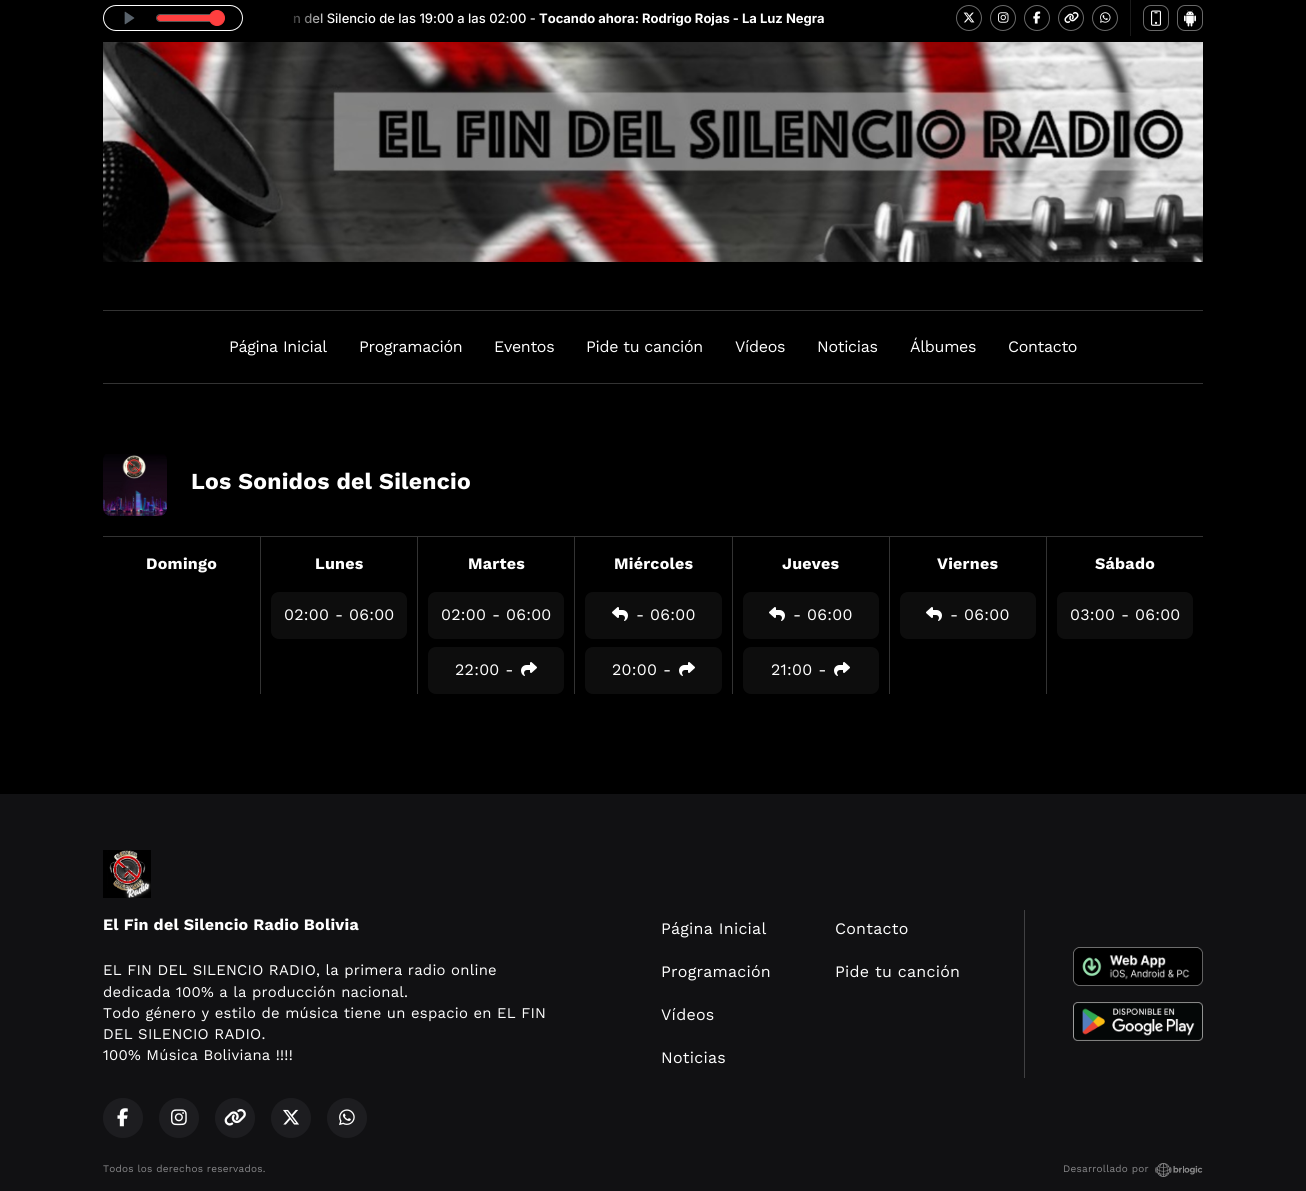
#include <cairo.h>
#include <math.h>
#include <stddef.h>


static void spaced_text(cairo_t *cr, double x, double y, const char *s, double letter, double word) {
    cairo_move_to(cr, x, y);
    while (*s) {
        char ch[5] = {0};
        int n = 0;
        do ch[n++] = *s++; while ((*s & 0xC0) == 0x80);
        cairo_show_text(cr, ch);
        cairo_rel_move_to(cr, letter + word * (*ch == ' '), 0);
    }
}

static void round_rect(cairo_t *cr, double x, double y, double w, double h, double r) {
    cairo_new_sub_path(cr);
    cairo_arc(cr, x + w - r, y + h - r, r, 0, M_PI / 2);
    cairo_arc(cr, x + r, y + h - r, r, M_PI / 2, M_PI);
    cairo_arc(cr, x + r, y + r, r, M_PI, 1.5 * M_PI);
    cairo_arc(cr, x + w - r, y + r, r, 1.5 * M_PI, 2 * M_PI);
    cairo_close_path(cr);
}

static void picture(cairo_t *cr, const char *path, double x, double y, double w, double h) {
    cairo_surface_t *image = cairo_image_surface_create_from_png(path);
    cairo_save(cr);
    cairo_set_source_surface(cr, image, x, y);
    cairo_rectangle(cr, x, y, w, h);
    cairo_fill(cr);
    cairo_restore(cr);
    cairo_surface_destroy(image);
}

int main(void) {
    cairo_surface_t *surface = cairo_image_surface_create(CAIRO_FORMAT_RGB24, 1306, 1191);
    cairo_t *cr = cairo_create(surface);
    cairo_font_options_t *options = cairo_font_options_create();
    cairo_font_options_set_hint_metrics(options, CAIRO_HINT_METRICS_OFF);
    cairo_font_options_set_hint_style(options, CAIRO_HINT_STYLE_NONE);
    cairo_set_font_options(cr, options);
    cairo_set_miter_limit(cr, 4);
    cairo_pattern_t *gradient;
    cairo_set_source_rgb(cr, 0, 0, 0);
    cairo_paint(cr);
    round_rect(cr, 103.5, 5.5, 139, 25, 12.5);
    cairo_set_source_rgb(cr, 1, 1, 1);
    cairo_set_line_width(cr, 1);
    cairo_stroke(cr);
    picture(cr, "img1.png", 124, 11, 11, 14);
    round_rect(cr, 156.5, 14.5, 61, 7, 3.5);
    cairo_set_source_rgb(cr, 0.333, 0.333, 0.333);
    cairo_stroke(cr);
    cairo_set_source_rgb(cr, 1, 0.247, 0.247);
    round_rect(cr, 157, 15, 60, 6, 3);
    cairo_fill(cr);
    cairo_arc(cr, 217, 18, 7.5, 0, 2 * M_PI);
    cairo_fill_preserve(cr);
    cairo_stroke(cr);
    cairo_select_font_face(cr, "Inter Medium", CAIRO_FONT_SLANT_NORMAL, CAIRO_FONT_WEIGHT_NORMAL);
    cairo_set_font_size(cr, 13);
    cairo_set_source_rgb(cr, 1, 1, 1);
    cairo_move_to(cr, 293, 23);
    cairo_show_text(cr, "n del Silencio de las 19:00 a las 02:00 -");
    cairo_select_font_face(cr, "Inter", CAIRO_FONT_SLANT_NORMAL, CAIRO_FONT_WEIGHT_BOLD);
    cairo_move_to(cr, 539, 23);
    cairo_show_text(cr, "Tocando ahora: Rodrigo Rojas - La Luz Negra");
    gradient = cairo_pattern_create_linear(267, 18, 334, 18);
    cairo_pattern_add_color_stop_rgba(gradient, 0.2, 0, 0, 0, 1);
    cairo_pattern_add_color_stop_rgba(gradient, 1, 0, 0, 0, 0);
    cairo_set_source(cr, gradient);
    cairo_pattern_destroy(gradient);
    cairo_rectangle(cr, 293, 13, 40, 11);
    cairo_fill(cr);
    cairo_arc(cr, 969, 18, 12.5, 0, 2 * M_PI);
    cairo_set_source_rgb(cr, 0.408, 0.408, 0.408);
    cairo_stroke(cr);
    picture(cr, "img2.png", 963, 12, 12, 11);
    cairo_arc(cr, 1003, 18, 12.5, 0, 2 * M_PI);
    cairo_stroke(cr);
    picture(cr, "img3.png", 998, 12, 11, 11);
    cairo_arc(cr, 1037, 18, 12.5, 0, 2 * M_PI);
    cairo_stroke(cr);
    picture(cr, "img4.png", 1033, 11, 8, 13);
    cairo_arc(cr, 1071, 18, 12.5, 0, 2 * M_PI);
    cairo_stroke(cr);
    picture(cr, "img5.png", 1064, 12, 15, 11);
    cairo_arc(cr, 1105, 18, 12.5, 0, 2 * M_PI);
    cairo_stroke(cr);
    picture(cr, "img6.png", 1100, 12, 11, 11);
    cairo_set_source_rgb(cr, 0.102, 0.102, 0.102);
    cairo_rectangle(cr, 1130, 0, 1, 36);
    cairo_fill(cr);
    round_rect(cr, 1143.5, 5.5, 25, 25, 7.5);
    cairo_set_source_rgb(cr, 0.408, 0.408, 0.408);
    cairo_stroke(cr);
    picture(cr, "img7.png", 1151, 10, 10, 16);
    round_rect(cr, 1177.5, 5.5, 25, 25, 7.5);
    cairo_stroke(cr);
    picture(cr, "img8.png", 1184, 10, 12, 17);
    picture(cr, "img9.png", 103, 42, 1100, 220);
    cairo_set_source_rgb(cr, 0.2, 0.2, 0.2);
    cairo_rectangle(cr, 103, 310, 1100, 1);
    cairo_fill(cr);
    cairo_rectangle(cr, 103, 383, 1100, 1);
    cairo_fill(cr);
    cairo_select_font_face(cr, "Work Sans", CAIRO_FONT_SLANT_NORMAL, CAIRO_FONT_WEIGHT_NORMAL);
    cairo_set_font_size(cr, 16);
    cairo_set_source_rgb(cr, 1, 1, 1);
    spaced_text(cr, 229, 352, "Página Inicial", -0.3, 0);
    spaced_text(cr, 359, 352, "Programación", -0.3, 0);
    spaced_text(cr, 494, 352, "Eventos", -0.3, 0);
    spaced_text(cr, 586, 352, "Pide tu canción", -0.3, 0);
    spaced_text(cr, 735, 352, "Vídeos", -0.3, 0);
    spaced_text(cr, 817, 352, "Noticias", -0.3, 0);
    spaced_text(cr, 910, 352, "Álbumes", -0.3, 0);
    spaced_text(cr, 1008, 352, "Contacto", -0.3, 0);
    picture(cr, "img10.png", 103, 454, 64, 62);
    cairo_select_font_face(cr, "Work Sans", CAIRO_FONT_SLANT_NORMAL, CAIRO_FONT_WEIGHT_BOLD);
    cairo_set_font_size(cr, 22.9);
    spaced_text(cr, 191, 489, "Los Sonidos del Silencio", 0.25, 0);
    cairo_set_source_rgb(cr, 0.2, 0.2, 0.2);
    cairo_rectangle(cr, 103, 536, 1100, 1);
    cairo_fill(cr);
    cairo_set_font_size(cr, 16);
    cairo_set_source_rgb(cr, 1, 1, 1);
    spaced_text(cr, 146, 569, "Domingo", 0.25, 0);
    cairo_set_source_rgb(cr, 0.2, 0.2, 0.2);
    cairo_rectangle(cr, 260, 537, 1, 157);
    cairo_fill(cr);
    cairo_set_source_rgb(cr, 1, 1, 1);
    spaced_text(cr, 315, 569, "Lunes", 0.25, 0);
    cairo_set_source_rgb(cr, 0.051, 0.051, 0.051);
    round_rect(cr, 271, 592, 136, 47, 8);
    cairo_fill(cr);
    cairo_select_font_face(cr, "Work Sans", CAIRO_FONT_SLANT_NORMAL, CAIRO_FONT_WEIGHT_NORMAL);
    cairo_set_source_rgb(cr, 1, 1, 1);
    spaced_text(cr, 284, 620, "02:00 - 06:00", 0.25, 0);
    cairo_set_source_rgb(cr, 0.2, 0.2, 0.2);
    cairo_rectangle(cr, 417, 537, 1, 157);
    cairo_fill(cr);
    cairo_select_font_face(cr, "Work Sans", CAIRO_FONT_SLANT_NORMAL, CAIRO_FONT_WEIGHT_BOLD);
    cairo_set_source_rgb(cr, 1, 1, 1);
    spaced_text(cr, 468, 569, "Martes", 0.25, 0);
    cairo_set_source_rgb(cr, 0.051, 0.051, 0.051);
    round_rect(cr, 428, 592, 136, 47, 8);
    cairo_fill(cr);
    cairo_select_font_face(cr, "Work Sans", CAIRO_FONT_SLANT_NORMAL, CAIRO_FONT_WEIGHT_NORMAL);
    cairo_set_source_rgb(cr, 1, 1, 1);
    spaced_text(cr, 441, 620, "02:00 - 06:00", 0.25, 0);
    cairo_set_source_rgb(cr, 0.051, 0.051, 0.051);
    round_rect(cr, 428, 647, 136, 47, 8);
    cairo_fill(cr);
    cairo_set_source_rgb(cr, 1, 1, 1);
    spaced_text(cr, 455, 675, "22:00 -", 0.25, 0);
    picture(cr, "img11.png", 521, 662, 16, 14);
    cairo_set_source_rgb(cr, 0.2, 0.2, 0.2);
    cairo_rectangle(cr, 574, 537, 1, 157);
    cairo_fill(cr);
    cairo_select_font_face(cr, "Work Sans", CAIRO_FONT_SLANT_NORMAL, CAIRO_FONT_WEIGHT_BOLD);
    cairo_set_source_rgb(cr, 1, 1, 1);
    spaced_text(cr, 614, 569, "Miércoles", 0.25, 0);
    cairo_set_source_rgb(cr, 0.051, 0.051, 0.051);
    round_rect(cr, 585, 592, 137, 47, 8);
    cairo_fill(cr);
    picture(cr, "img12.png", 612, 607, 16, 14);
    cairo_select_font_face(cr, "Work Sans", CAIRO_FONT_SLANT_NORMAL, CAIRO_FONT_WEIGHT_NORMAL);
    cairo_set_source_rgb(cr, 1, 1, 1);
    spaced_text(cr, 636, 620, "- 06:00", 0.25, 0);
    cairo_set_source_rgb(cr, 0.051, 0.051, 0.051);
    round_rect(cr, 585, 647, 137, 47, 8);
    cairo_fill(cr);
    cairo_set_source_rgb(cr, 1, 1, 1);
    spaced_text(cr, 612, 675, "20:00 -", 0.25, 0);
    picture(cr, "img11.png", 679, 662, 16, 14);
    cairo_set_source_rgb(cr, 0.2, 0.2, 0.2);
    cairo_rectangle(cr, 732, 537, 1, 157);
    cairo_fill(cr);
    cairo_select_font_face(cr, "Work Sans", CAIRO_FONT_SLANT_NORMAL, CAIRO_FONT_WEIGHT_BOLD);
    cairo_set_source_rgb(cr, 1, 1, 1);
    spaced_text(cr, 782, 569, "Jueves", 0.25, 0);
    cairo_set_source_rgb(cr, 0.051, 0.051, 0.051);
    round_rect(cr, 743, 592, 136, 47, 8);
    cairo_fill(cr);
    picture(cr, "img12.png", 769, 607, 16, 14);
    cairo_select_font_face(cr, "Work Sans", CAIRO_FONT_SLANT_NORMAL, CAIRO_FONT_WEIGHT_NORMAL);
    cairo_set_source_rgb(cr, 1, 1, 1);
    spaced_text(cr, 793, 620, "- 06:00", 0.25, 0);
    cairo_set_source_rgb(cr, 0.051, 0.051, 0.051);
    round_rect(cr, 743, 647, 136, 47, 8);
    cairo_fill(cr);
    cairo_set_source_rgb(cr, 1, 1, 1);
    spaced_text(cr, 771, 675, "21:00 -", 0.25, 0);
    picture(cr, "img11.png", 834, 662, 16, 14);
    cairo_set_source_rgb(cr, 0.2, 0.2, 0.2);
    cairo_rectangle(cr, 889, 537, 1, 157);
    cairo_fill(cr);
    cairo_select_font_face(cr, "Work Sans", CAIRO_FONT_SLANT_NORMAL, CAIRO_FONT_WEIGHT_BOLD);
    cairo_set_source_rgb(cr, 1, 1, 1);
    spaced_text(cr, 937, 569, "Viernes", 0.25, 0);
    cairo_set_source_rgb(cr, 0.051, 0.051, 0.051);
    round_rect(cr, 900, 592, 136, 47, 8);
    cairo_fill(cr);
    picture(cr, "img12.png", 926, 607, 16, 14);
    cairo_select_font_face(cr, "Work Sans", CAIRO_FONT_SLANT_NORMAL, CAIRO_FONT_WEIGHT_NORMAL);
    cairo_set_source_rgb(cr, 1, 1, 1);
    spaced_text(cr, 950, 620, "- 06:00", 0.25, 0);
    cairo_set_source_rgb(cr, 0.2, 0.2, 0.2);
    cairo_rectangle(cr, 1046, 537, 1, 157);
    cairo_fill(cr);
    cairo_select_font_face(cr, "Work Sans", CAIRO_FONT_SLANT_NORMAL, CAIRO_FONT_WEIGHT_BOLD);
    cairo_set_source_rgb(cr, 1, 1, 1);
    spaced_text(cr, 1095, 569, "Sábado", 0.25, 0);
    cairo_set_source_rgb(cr, 0.051, 0.051, 0.051);
    round_rect(cr, 1057, 592, 136, 47, 8);
    cairo_fill(cr);
    cairo_select_font_face(cr, "Work Sans", CAIRO_FONT_SLANT_NORMAL, CAIRO_FONT_WEIGHT_NORMAL);
    cairo_set_source_rgb(cr, 1, 1, 1);
    spaced_text(cr, 1070, 620, "03:00 - 06:00", 0.25, 0);
    cairo_set_source_rgb(cr, 0.067, 0.067, 0.078);
    cairo_rectangle(cr, 0, 794, 1306, 397);
    cairo_fill(cr);
    picture(cr, "img13.png", 103, 850, 48, 48);
    cairo_select_font_face(cr, "Work Sans", CAIRO_FONT_SLANT_NORMAL, CAIRO_FONT_WEIGHT_BOLD);
    cairo_set_source_rgb(cr, 1, 1, 1);
    spaced_text(cr, 103, 930, "El Fin del Silencio Radio Bolivia", 0.25, 0);
    cairo_select_font_face(cr, "Work Sans", CAIRO_FONT_SLANT_NORMAL, CAIRO_FONT_WEIGHT_NORMAL);
    cairo_set_font_size(cr, 14.85);
    spaced_text(cr, 103, 975, "EL FIN DEL SILENCIO RADIO, la primera radio online", 0.25, 0);
    spaced_text(cr, 103, 997, "dedicada 100% a la producción nacional.", 0.25, 0);
    spaced_text(cr, 103, 1018, "Todo género y estilo de música tiene un espacio en EL FIN", 0.25, 0);
    spaced_text(cr, 103, 1039, "DEL SILENCIO RADIO.", 0.25, 0);
    spaced_text(cr, 103, 1060, "100% Música Boliviana !!!!", 0.25, 0);
    cairo_set_source_rgb(cr, 0.114, 0.114, 0.125);
    cairo_new_path(cr);
    cairo_arc(cr, 123, 1118, 20, 0, 2 * M_PI);
    cairo_fill(cr);
    picture(cr, "img14.png", 117, 1108, 11, 19);
    cairo_arc(cr, 179, 1118, 20, 0, 2 * M_PI);
    cairo_fill(cr);
    picture(cr, "img15.png", 171, 1109, 16, 17);
    cairo_arc(cr, 235, 1118, 20, 0, 2 * M_PI);
    cairo_fill(cr);
    picture(cr, "img16.png", 224, 1109, 22, 17);
    cairo_arc(cr, 291, 1118, 20, 0, 2 * M_PI);
    cairo_fill(cr);
    picture(cr, "img17.png", 283, 1109, 16, 16);
    cairo_arc(cr, 347, 1118, 20, 0, 2 * M_PI);
    cairo_fill(cr);
    picture(cr, "img18.png", 339, 1109, 16, 17);
    cairo_set_source_rgb(cr, 0.255, 0.255, 0.263);
    cairo_rectangle(cr, 1024, 910, 1, 168);
    cairo_fill(cr);
    cairo_set_font_size(cr, 16);
    cairo_set_source_rgb(cr, 1, 1, 1);
    spaced_text(cr, 661, 934, "Página Inicial", 0.25, 0);
    spaced_text(cr, 835, 934, "Contacto", 0.25, 0);
    spaced_text(cr, 661, 977, "Programación", 0.25, 0);
    spaced_text(cr, 835, 977, "Pide tu canción", 0.25, 0);
    spaced_text(cr, 661, 1020, "Vídeos", 0.25, 0);
    spaced_text(cr, 661, 1063, "Noticias", 0.25, 0);
    picture(cr, "img19.png", 1073, 947, 130, 39);
    picture(cr, "img20.png", 1073, 1002, 130, 39);
    cairo_set_font_size(cr, 10);
    cairo_set_source_rgb(cr, 0.533, 0.533, 0.541);
    spaced_text(cr, 103, 1172, "Todos los derechos reservados.", 0.25, 0);
    spaced_text(cr, 1063, 1172, "Desarrollado por", 0.25, 0);
    picture(cr, "img21.png", 1155, 1163, 48, 14);
    cairo_surface_write_to_png(surface, "page.png");
    cairo_font_options_destroy(options);
    cairo_destroy(cr);
    cairo_surface_destroy(surface);
    return 0;
}
